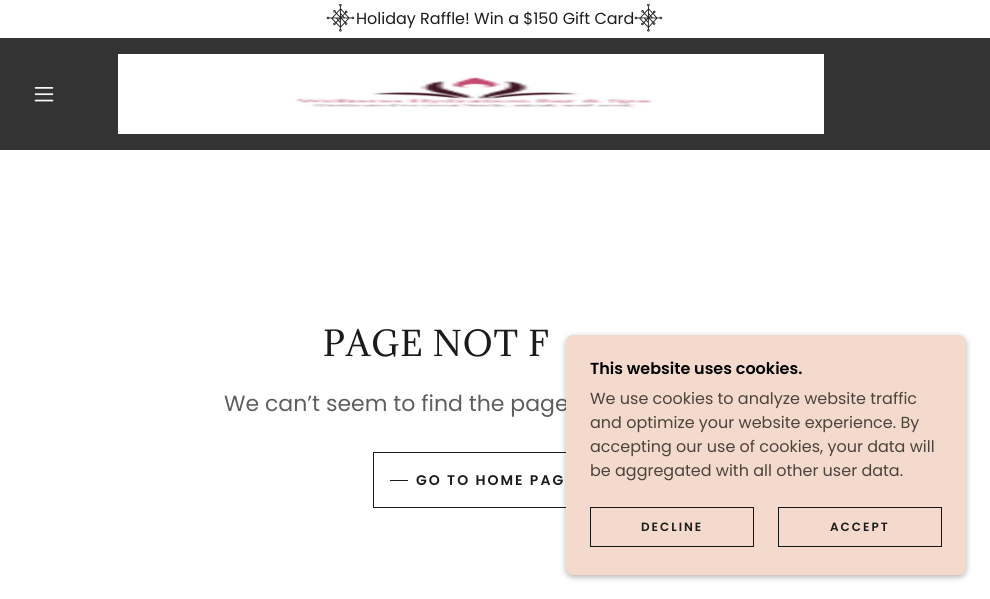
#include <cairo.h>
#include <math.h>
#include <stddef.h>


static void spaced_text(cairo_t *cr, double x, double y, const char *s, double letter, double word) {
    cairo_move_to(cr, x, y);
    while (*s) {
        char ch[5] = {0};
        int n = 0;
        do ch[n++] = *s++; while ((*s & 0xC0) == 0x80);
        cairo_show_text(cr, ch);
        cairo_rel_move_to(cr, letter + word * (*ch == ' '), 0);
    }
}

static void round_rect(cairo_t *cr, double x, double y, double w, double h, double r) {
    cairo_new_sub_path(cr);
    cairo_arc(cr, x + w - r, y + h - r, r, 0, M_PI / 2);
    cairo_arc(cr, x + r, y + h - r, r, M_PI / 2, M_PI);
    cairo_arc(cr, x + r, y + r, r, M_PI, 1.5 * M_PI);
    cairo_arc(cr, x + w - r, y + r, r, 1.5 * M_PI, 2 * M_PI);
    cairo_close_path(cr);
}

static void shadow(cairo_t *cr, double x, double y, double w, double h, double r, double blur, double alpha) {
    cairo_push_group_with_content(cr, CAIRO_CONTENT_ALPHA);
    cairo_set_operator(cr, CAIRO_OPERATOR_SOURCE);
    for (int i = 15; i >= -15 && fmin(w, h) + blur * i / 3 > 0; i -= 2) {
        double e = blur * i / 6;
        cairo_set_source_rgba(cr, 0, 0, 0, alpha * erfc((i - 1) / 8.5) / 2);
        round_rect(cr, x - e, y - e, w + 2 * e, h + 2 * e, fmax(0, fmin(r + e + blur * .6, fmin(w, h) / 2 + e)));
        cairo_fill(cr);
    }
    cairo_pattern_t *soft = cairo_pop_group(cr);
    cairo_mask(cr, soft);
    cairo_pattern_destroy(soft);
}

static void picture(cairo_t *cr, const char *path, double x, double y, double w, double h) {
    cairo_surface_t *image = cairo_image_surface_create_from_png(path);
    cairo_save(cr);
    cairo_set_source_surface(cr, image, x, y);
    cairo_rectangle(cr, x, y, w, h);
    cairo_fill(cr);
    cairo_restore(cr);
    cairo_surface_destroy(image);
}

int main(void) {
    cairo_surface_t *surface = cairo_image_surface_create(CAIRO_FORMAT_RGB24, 990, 599);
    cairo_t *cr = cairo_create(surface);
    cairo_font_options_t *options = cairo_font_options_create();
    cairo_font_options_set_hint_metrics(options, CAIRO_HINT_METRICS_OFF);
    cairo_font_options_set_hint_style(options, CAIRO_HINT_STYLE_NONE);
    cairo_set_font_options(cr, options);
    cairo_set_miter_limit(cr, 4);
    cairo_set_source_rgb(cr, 1, 1, 1);
    cairo_paint(cr);
    picture(cr, "img1.png", 326, 4, 29, 28);
    cairo_select_font_face(cr, "Poppins", CAIRO_FONT_SLANT_NORMAL, CAIRO_FONT_WEIGHT_NORMAL);
    cairo_set_font_size(cr, 16);
    cairo_set_source_rgb(cr, 0.106, 0.106, 0.106);
    cairo_move_to(cr, 356, 24);
    cairo_show_text(cr, "Holiday Raffle! Win a $150 Gift Card");
    picture(cr, "img1.png", 634, 4, 29, 28);
    cairo_set_source_rgb(cr, 0.2, 0.2, 0.2);
    cairo_rectangle(cr, 0, 38, 990, 112);
    cairo_fill(cr);
    picture(cr, "img2.png", 34, 87, 20, 15);
    cairo_set_source_rgb(cr, 1, 1, 1);
    cairo_rectangle(cr, 118, 54, 706, 80);
    cairo_fill(cr);
    picture(cr, "img3.png", 295, 77, 358, 31);
    cairo_select_font_face(cr, "Adamina", CAIRO_FONT_SLANT_NORMAL, CAIRO_FONT_WEIGHT_NORMAL);
    cairo_set_font_size(cr, 33);
    cairo_set_source_rgb(cr, 0.106, 0.106, 0.106);
    spaced_text(cr, 323, 356, "PAGE NOT F", 1, 0);
    cairo_select_font_face(cr, "Poppins", CAIRO_FONT_SLANT_NORMAL, CAIRO_FONT_WEIGHT_NORMAL);
    cairo_set_font_size(cr, 22);
    cairo_set_source_rgb(cr, 0.369, 0.369, 0.369);
    cairo_move_to(cr, 224, 411);
    cairo_show_text(cr, "We can’t seem to find the page");
    cairo_rectangle(cr, 373.5, 452.5, 243, 55);
    cairo_set_source_rgb(cr, 0.106, 0.106, 0.106);
    cairo_set_line_width(cr, 1);
    cairo_stroke(cr);
    cairo_rectangle(cr, 390, 480, 18, 1);
    cairo_fill(cr);
    cairo_select_font_face(cr, "Poppins SemiBold", CAIRO_FONT_SLANT_NORMAL, CAIRO_FONT_WEIGHT_NORMAL);
    cairo_set_font_size(cr, 14);
    spaced_text(cr, 416, 485, "GO TO HOME PAG", 2, 0);
    cairo_set_source_rgb(cr, 0, 0, 0);
    shadow(cr, 566, 337, 400, 240, 7, 3, 0.3);
    cairo_set_source_rgb(cr, 0.953, 0.855, 0.804);
    round_rect(cr, 566, 335, 400, 240, 7);
    cairo_fill(cr);
    cairo_set_font_size(cr, 16);
    cairo_set_source_rgb(cr, 0, 0, 0);
    cairo_move_to(cr, 590, 374);
    cairo_show_text(cr, "This website uses cookies.");
    cairo_select_font_face(cr, "Poppins", CAIRO_FONT_SLANT_NORMAL, CAIRO_FONT_WEIGHT_NORMAL);
    cairo_set_source_rgb(cr, 0.302, 0.259, 0.235);
    cairo_move_to(cr, 590, 404);
    cairo_show_text(cr, "We use cookies to analyze website traffic");
    cairo_move_to(cr, 590, 428);
    cairo_show_text(cr, "and optimize your website experience. By");
    cairo_move_to(cr, 590, 452);
    cairo_show_text(cr, "accepting our use of cookies, your data will");
    cairo_move_to(cr, 590, 476);
    cairo_show_text(cr, "be aggregated with all other user data.");
    cairo_rectangle(cr, 590.5, 507.5, 163, 39);
    cairo_set_source_rgb(cr, 0.086, 0.086, 0.086);
    cairo_stroke(cr);
    cairo_select_font_face(cr, "Poppins SemiBold", CAIRO_FONT_SLANT_NORMAL, CAIRO_FONT_WEIGHT_NORMAL);
    cairo_set_font_size(cr, 12);
    cairo_set_source_rgb(cr, 0.106, 0.106, 0.106);
    spaced_text(cr, 641, 531, "DECLINE", 2, 0);
    cairo_rectangle(cr, 778.5, 507.5, 163, 39);
    cairo_set_source_rgb(cr, 0.086, 0.086, 0.086);
    cairo_stroke(cr);
    cairo_set_source_rgb(cr, 0.106, 0.106, 0.106);
    spaced_text(cr, 830, 531, "ACCEPT", 2, 0);
    cairo_surface_write_to_png(surface, "page.png");
    cairo_font_options_destroy(options);
    cairo_destroy(cr);
    cairo_surface_destroy(surface);
    return 0;
}
